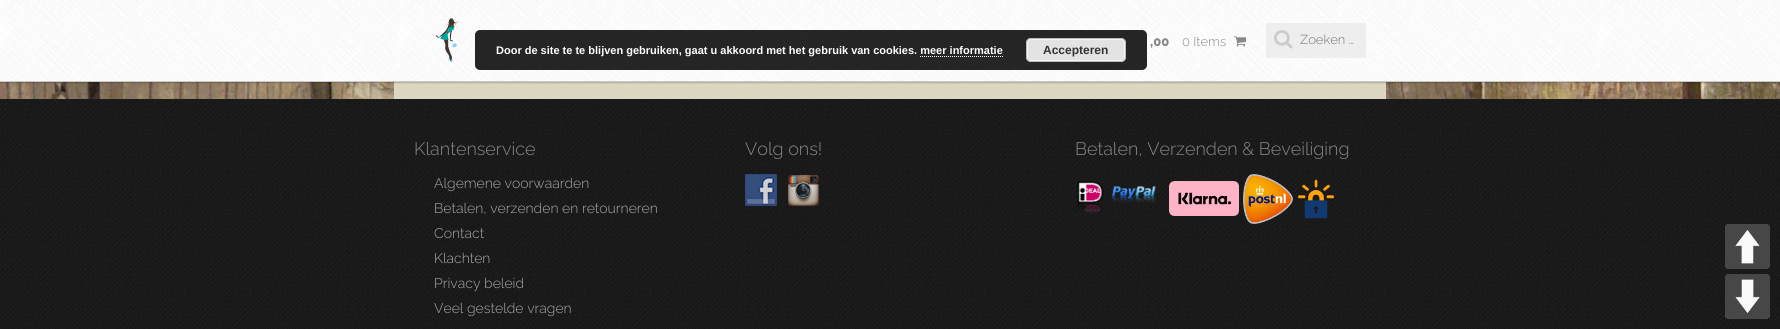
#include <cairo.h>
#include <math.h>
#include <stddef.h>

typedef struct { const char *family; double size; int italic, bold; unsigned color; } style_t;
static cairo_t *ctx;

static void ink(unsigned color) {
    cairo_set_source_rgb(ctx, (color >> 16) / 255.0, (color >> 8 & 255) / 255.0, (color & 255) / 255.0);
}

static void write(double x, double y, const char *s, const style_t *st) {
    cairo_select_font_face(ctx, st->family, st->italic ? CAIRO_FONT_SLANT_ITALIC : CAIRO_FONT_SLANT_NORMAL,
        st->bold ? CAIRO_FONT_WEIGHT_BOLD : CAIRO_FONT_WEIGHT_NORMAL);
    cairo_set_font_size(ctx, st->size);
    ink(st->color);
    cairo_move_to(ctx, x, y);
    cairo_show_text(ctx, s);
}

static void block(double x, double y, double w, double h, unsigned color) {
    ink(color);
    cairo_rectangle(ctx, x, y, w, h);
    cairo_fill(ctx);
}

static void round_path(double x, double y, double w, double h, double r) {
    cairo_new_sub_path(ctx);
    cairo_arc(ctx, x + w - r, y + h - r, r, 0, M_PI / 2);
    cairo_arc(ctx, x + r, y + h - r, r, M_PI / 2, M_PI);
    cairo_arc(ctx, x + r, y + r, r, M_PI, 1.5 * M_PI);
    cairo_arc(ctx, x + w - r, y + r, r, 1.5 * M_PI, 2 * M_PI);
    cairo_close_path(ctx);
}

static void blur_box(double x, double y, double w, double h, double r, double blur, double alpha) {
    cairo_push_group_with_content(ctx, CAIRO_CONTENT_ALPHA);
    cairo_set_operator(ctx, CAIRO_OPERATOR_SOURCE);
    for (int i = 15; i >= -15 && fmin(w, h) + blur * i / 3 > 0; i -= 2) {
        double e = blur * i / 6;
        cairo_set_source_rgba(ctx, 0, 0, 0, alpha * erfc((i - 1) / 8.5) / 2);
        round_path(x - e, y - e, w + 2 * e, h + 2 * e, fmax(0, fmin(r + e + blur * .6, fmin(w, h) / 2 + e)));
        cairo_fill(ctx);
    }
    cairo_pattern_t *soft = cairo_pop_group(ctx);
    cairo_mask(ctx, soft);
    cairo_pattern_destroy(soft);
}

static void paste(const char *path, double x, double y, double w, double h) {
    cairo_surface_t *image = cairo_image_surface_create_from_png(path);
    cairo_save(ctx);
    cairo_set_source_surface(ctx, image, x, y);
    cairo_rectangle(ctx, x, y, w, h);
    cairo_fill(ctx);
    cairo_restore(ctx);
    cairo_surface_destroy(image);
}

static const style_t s1 = {"Raleway ExtraBold", 13, 0, 0, 0x888888};
static const style_t s2 = {"Raleway Light", 13, 0, 0, 0x888888};
static const style_t s3 = {"Raleway Light", 13, 0, 0, 0x757575};
static const style_t s4 = {"Raleway Light", 18, 0, 0, 0x888888};
static const style_t s5 = {"Raleway Light", 14, 0, 0, 0xaaaaaa};
static const style_t s6 = {"Liberation Sans", 11, 0, 1, 0xffffff};
static const style_t s7 = {"Liberation Sans", 12, 0, 1, 0x333333};

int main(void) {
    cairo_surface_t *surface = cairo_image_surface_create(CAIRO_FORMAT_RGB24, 1780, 329);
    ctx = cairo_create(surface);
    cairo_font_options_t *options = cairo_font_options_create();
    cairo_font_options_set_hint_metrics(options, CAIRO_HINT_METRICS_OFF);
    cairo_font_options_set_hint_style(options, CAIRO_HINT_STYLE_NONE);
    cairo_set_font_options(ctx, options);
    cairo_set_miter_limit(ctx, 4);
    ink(0xffffff);
    cairo_paint(ctx);
    paste("pic1.png", 0, 82, 1780, 17);
    block(394, 82, 992, 17, 0xddd6c1);
    ink(0x000000);
    blur_box(0, 1, 1780, 82, 0, 0.5, 0.2);
    paste("pic2.png", 0, 0, 1780, 82);
    cairo_set_source_rgba(ctx, 0, 0, 0, 0.2);
    cairo_rectangle(ctx, 0, 81, 1780, 1);
    cairo_fill(ctx);
    paste("pic3.png", 435, 18, 23, 44);
    write(1150, 46, ",00", &s1);
    write(1182, 46, "0 Items", &s2);
    paste("pic4.png", 1234, 36, 13, 11);
    block(1266, 23, 100, 35, 0xeeeeee);
    paste("pic5.png", 1274, 30, 19, 19);
    write(1300, 44, "Zoeken …", &s3);
    paste("pic6.png", 0, 99, 1780, 230);
    write(414, 155, "Klantenservice", &s4);
    write(434, 188, "Algemene voorwaarden", &s5);
    write(434, 213, "Betalen, verzenden en retourneren", &s5);
    write(434, 238, "Contact", &s5);
    write(434, 263, "Klachten", &s5);
    write(434, 288, "Privacy beleid", &s5);
    write(434, 313, "Veel gestelde vragen", &s5);
    write(745, 155, "Volg ons!", &s4);
    paste("pic7.png", 745, 174, 32, 32);
    paste("pic8.png", 788, 175, 31, 31);
    write(1075, 155, "Betalen, Verzenden & Beveiliging", &s4);
    paste("pic9.png", 1077, 181, 79, 33);
    paste("pic10.png", 1169, 181, 70, 35);
    paste("pic11.png", 1243, 174, 50, 50);
    paste("pic12.png", 1298, 179, 36, 40);
    cairo_set_source_rgba(ctx, 0, 0, 0, 0.85);
    round_path(475, 30, 672, 40, 5);
    cairo_fill(ctx);
    write(496, 54, "Door de site te te blijven gebruiken, gaat u akkoord met het gebruik van cookies. meer informatie", &s6);
    ink(0xe3e3e3);
    round_path(1026, 38, 100, 24, 5);
    cairo_fill(ctx);
    round_path(1027.5, 39.5, 97, 21, 3.5);
    ink(0xf6f6f6);
    cairo_set_line_width(ctx, 1);
    cairo_stroke(ctx);
    round_path(1026.5, 38.5, 99, 23, 4.5);
    ink(0xbbbbbb);
    cairo_stroke(ctx);
    write(1043, 54, "Accepteren", &s7);
    cairo_new_path(ctx);
    cairo_move_to(ctx, 920, 56.5);
    cairo_line_to(ctx, 1003, 56.5);
    ink(0xffffff);
    cairo_set_dash(ctx, (double[]){1, 1}, 2, 0);
    cairo_stroke(ctx);
    ink(0xefefef);
    round_path(1725, 224, 45, 45, 4);
    cairo_fill(ctx);
    paste("pic13.png", 1725, 224, 45, 45);
    round_path(1725, 274, 45, 45, 4);
    cairo_fill(ctx);
    paste("pic14.png", 1725, 274, 45, 45);
    cairo_surface_write_to_png(surface, "screenshot.png");
    cairo_font_options_destroy(options);
    cairo_destroy(ctx);
    cairo_surface_destroy(surface);
    return 0;
}
